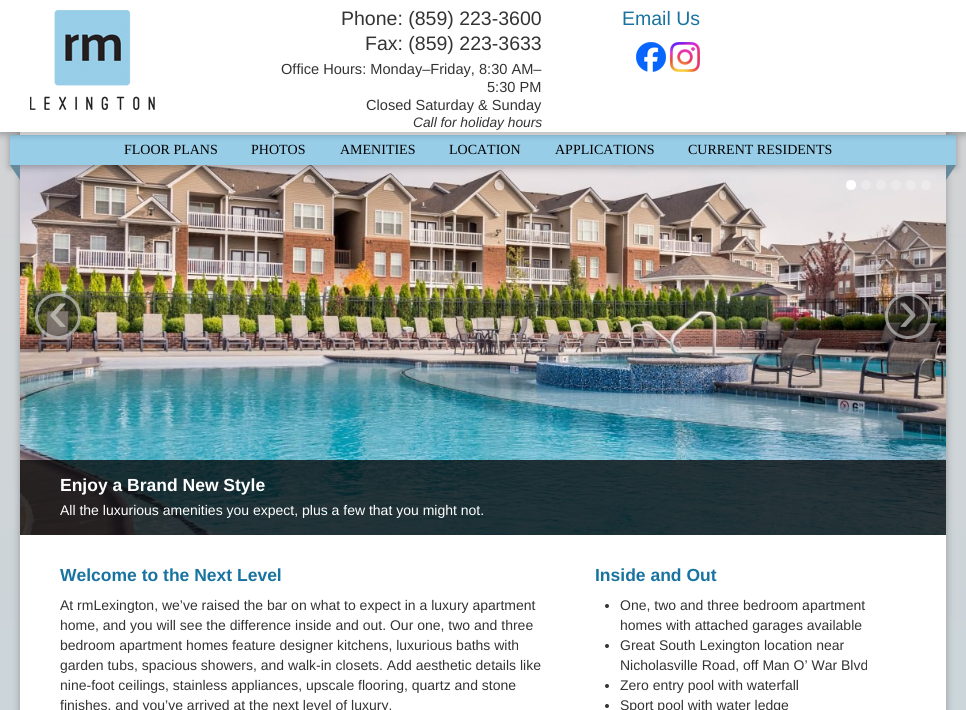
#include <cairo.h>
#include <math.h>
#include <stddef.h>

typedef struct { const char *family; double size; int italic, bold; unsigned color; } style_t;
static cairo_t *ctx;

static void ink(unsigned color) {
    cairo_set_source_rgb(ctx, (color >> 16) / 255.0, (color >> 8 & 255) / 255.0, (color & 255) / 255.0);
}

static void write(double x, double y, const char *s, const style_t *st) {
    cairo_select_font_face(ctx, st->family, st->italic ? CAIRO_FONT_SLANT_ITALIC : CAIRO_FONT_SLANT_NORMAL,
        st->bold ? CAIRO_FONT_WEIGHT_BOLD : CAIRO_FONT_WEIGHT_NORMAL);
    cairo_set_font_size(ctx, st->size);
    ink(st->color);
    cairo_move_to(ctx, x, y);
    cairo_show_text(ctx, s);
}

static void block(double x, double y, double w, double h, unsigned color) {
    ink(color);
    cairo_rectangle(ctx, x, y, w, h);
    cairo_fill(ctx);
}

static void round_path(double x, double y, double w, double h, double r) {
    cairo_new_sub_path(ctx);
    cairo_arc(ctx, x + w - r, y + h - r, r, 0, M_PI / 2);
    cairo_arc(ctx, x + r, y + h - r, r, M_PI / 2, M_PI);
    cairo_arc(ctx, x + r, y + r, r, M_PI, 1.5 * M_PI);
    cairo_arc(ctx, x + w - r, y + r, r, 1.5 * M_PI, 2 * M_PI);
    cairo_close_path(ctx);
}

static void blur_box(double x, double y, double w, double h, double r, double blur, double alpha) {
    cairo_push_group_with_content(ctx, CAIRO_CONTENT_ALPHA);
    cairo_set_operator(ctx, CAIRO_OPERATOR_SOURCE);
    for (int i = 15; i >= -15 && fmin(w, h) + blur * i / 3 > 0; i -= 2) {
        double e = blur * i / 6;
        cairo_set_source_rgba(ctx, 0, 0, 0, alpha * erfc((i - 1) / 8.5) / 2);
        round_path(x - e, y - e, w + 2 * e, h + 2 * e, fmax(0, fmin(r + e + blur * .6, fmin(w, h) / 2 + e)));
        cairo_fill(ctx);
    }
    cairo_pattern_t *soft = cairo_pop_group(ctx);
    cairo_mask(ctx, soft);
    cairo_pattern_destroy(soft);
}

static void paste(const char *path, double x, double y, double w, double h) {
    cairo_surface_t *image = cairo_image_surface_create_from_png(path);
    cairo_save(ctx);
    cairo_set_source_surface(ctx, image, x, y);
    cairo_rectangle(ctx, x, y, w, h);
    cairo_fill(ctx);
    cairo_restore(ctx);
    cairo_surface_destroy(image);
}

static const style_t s1 = {"Liberation Sans", 19.5, 0, 0, 0x333333};
static const style_t s2 = {"Liberation Sans", 14.6, 0, 0, 0x333333};
static const style_t s3 = {"Liberation Sans", 13.75, 1, 0, 0x333333};
static const style_t s4 = {"Liberation Sans", 19.5, 0, 0, 0x1973a1};
static const style_t s5 = {"Liberation Serif", 14, 0, 0, 0x000000};
static const style_t s6 = {"Liberation Sans", 60, 0, 0, 0xb5b2aa};
static const style_t s7 = {"Liberation Sans", 60, 0, 0, 0x969592};
static const style_t s8 = {"Liberation Sans", 17.5, 0, 1, 0xffffff};
static const style_t s9 = {"Liberation Sans", 14, 0, 0, 0xffffff};
static const style_t s10 = {"Liberation Sans", 17.5, 0, 1, 0x1973a1};
static const style_t s11 = {"Liberation Sans", 14, 0, 0, 0x333333};

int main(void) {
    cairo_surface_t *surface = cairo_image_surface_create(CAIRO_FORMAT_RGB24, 966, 710);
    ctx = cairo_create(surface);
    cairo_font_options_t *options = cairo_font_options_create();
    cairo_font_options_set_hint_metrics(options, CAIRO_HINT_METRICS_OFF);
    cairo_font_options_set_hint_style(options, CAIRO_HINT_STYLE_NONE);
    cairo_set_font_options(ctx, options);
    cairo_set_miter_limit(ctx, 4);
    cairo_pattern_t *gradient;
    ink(0xffffff);
    cairo_paint(ctx);
    gradient = cairo_pattern_create_linear(483, 0, 483, 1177);
    cairo_pattern_add_color_stop_rgba(gradient, 0, 0.827, 0.827, 0.827, 1);
    cairo_pattern_add_color_stop_rgba(gradient, 1, 0.78, 0.839, 0.871, 1);
    cairo_set_source(ctx, gradient);
    cairo_pattern_destroy(gradient);
    cairo_rectangle(ctx, 0, 132, 966, 578);
    cairo_fill(ctx);
    ink(0x000000);
    blur_box(20, 2, 926, 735, 15, 4, 0.3);
    block(20, 132, 926, 578, 0xffffff);
    paste("pic4.png", 20, 165, 926, 370);
    ink(0x000000);
    blur_box(10, 137, 946, 30, 0, 4, 0.3);
    block(10, 135, 946, 30, 0x98cde8);
    ink(0x000000);
    blur_box(0, 2, 966, 132, 0, 4, 0.3);
    block(0, 0, 966, 132, 0xffffff);
    paste("pic1.png", 30, 10, 125, 100);
    write(341, 25, "Phone: (859) 223-3600", &s1);
    write(365, 50, "Fax: (859) 223-3633", &s1);
    write(281, 74, "Office Hours: Monday–Friday, 8:30 AM–", &s2);
    write(487, 92, "5:30 PM", &s2);
    write(366, 110, "Closed Saturday & Sunday", &s2);
    write(413, 127, "Call for holiday hours", &s3);
    write(622, 25, "Email Us", &s4);
    paste("pic2.png", 636, 42, 30, 30);
    paste("pic3.png", 670, 42, 30, 30);
    write(124, 154, "FLOOR PLANS", &s5);
    write(251, 154, "PHOTOS", &s5);
    write(340, 154, "AMENITIES", &s5);
    write(449, 154, "LOCATION", &s5);
    write(555, 154, "APPLICATIONS", &s5);
    write(688, 154, "CURRENT RESIDENTS", &s5);
    ink(0x66899b);
    cairo_new_path(ctx);
    cairo_move_to(ctx, 20, 165);
    cairo_line_to(ctx, 20, 180);
    cairo_line_to(ctx, 10, 165);
    cairo_close_path(ctx);
    cairo_fill(ctx);
    cairo_new_path(ctx);
    cairo_move_to(ctx, 946, 180);
    cairo_line_to(ctx, 946, 165);
    cairo_line_to(ctx, 956, 165);
    cairo_close_path(ctx);
    cairo_fill(ctx);
    ink(0xffffff);
    cairo_arc(ctx, 851, 185, 5, 0, 2 * M_PI);
    cairo_fill(ctx);
    cairo_set_source_rgba(ctx, 1, 1, 1, 0.25);
    cairo_arc(ctx, 866, 185, 5, 0, 2 * M_PI);
    cairo_fill(ctx);
    ink(0xebe9ea);
    cairo_arc(ctx, 881, 185, 5, 0, 2 * M_PI);
    cairo_fill(ctx);
    ink(0xebeaea);
    cairo_arc(ctx, 896, 185, 5, 0, 2 * M_PI);
    cairo_fill(ctx);
    cairo_set_source_rgba(ctx, 1, 1, 1, 0.25);
    cairo_arc(ctx, 911, 185, 5, 0, 2 * M_PI);
    cairo_fill(ctx);
    cairo_arc(ctx, 926, 185, 5, 0, 2 * M_PI);
    cairo_fill(ctx);
    cairo_set_source_rgba(ctx, 0.133, 0.133, 0.133, 0.5);
    cairo_arc(ctx, 58, 316, 23, 0, 2 * M_PI);
    cairo_fill(ctx);
    cairo_arc(ctx, 58, 316, 21.5, 0, 2 * M_PI);
    cairo_set_source_rgba(ctx, 1, 1, 1, 0.5);
    cairo_set_line_width(ctx, 3);
    cairo_stroke(ctx);
    write(48, 331, "‹", &s6);
    cairo_set_source_rgba(ctx, 0.133, 0.133, 0.133, 0.5);
    cairo_new_path(ctx);
    cairo_arc(ctx, 908, 316, 23, 0, 2 * M_PI);
    cairo_fill(ctx);
    cairo_arc(ctx, 908, 316, 21.5, 0, 2 * M_PI);
    cairo_set_source_rgba(ctx, 1, 1, 1, 0.5);
    cairo_stroke(ctx);
    write(898, 331, "›", &s7);
    cairo_set_source_rgba(ctx, 0, 0, 0, 0.75);
    cairo_rectangle(ctx, 20, 460, 926, 75);
    cairo_fill(ctx);
    write(60, 491, "Enjoy a Brand New Style", &s8);
    write(60, 515, "All the luxurious amenities you expect, plus a few that you might not.", &s9);
    write(60, 581, "Welcome to the Next Level", &s10);
    write(60, 610, "At rmLexington, we’ve raised the bar on what to expect in a luxury apartment", &s11);
    write(60, 630, "home, and you will see the difference inside and out. Our one, two and three", &s11);
    write(60, 650, "bedroom apartment homes feature designer kitchens, luxurious baths with", &s11);
    write(60, 670, "garden tubs, spacious showers, and walk-in closets. Add aesthetic details like", &s11);
    write(60, 690, "nine-foot ceilings, stainless appliances, upscale flooring, quartz and stone", &s11);
    write(60, 710, "finishes, and you’ve arrived at the next level of luxury.", &s11);
    write(595, 581, "Inside and Out", &s10);
    ink(0x333333);
    cairo_new_path(ctx);
    cairo_arc(ctx, 607, 606, 2, 0, 2 * M_PI);
    cairo_fill(ctx);
    write(620, 610, "One, two and three bedroom apartment", &s11);
    write(620, 630, "homes with attached garages available", &s11);
    cairo_new_path(ctx);
    cairo_arc(ctx, 607, 646, 2, 0, 2 * M_PI);
    cairo_fill(ctx);
    write(620, 650, "Great South Lexington location near", &s11);
    write(620, 670, "Nicholasville Road, off Man O’ War Blvd", &s11);
    cairo_new_path(ctx);
    cairo_arc(ctx, 607, 686, 2, 0, 2 * M_PI);
    cairo_fill(ctx);
    write(620, 690, "Zero entry pool with waterfall", &s11);
    cairo_new_path(ctx);
    cairo_arc(ctx, 607, 706, 2, 0, 2 * M_PI);
    cairo_fill(ctx);
    write(620, 710, "Sport pool with water ledge", &s11);
    cairo_surface_write_to_png(surface, "screenshot.png");
    cairo_font_options_destroy(options);
    cairo_destroy(ctx);
    cairo_surface_destroy(surface);
    return 0;
}
